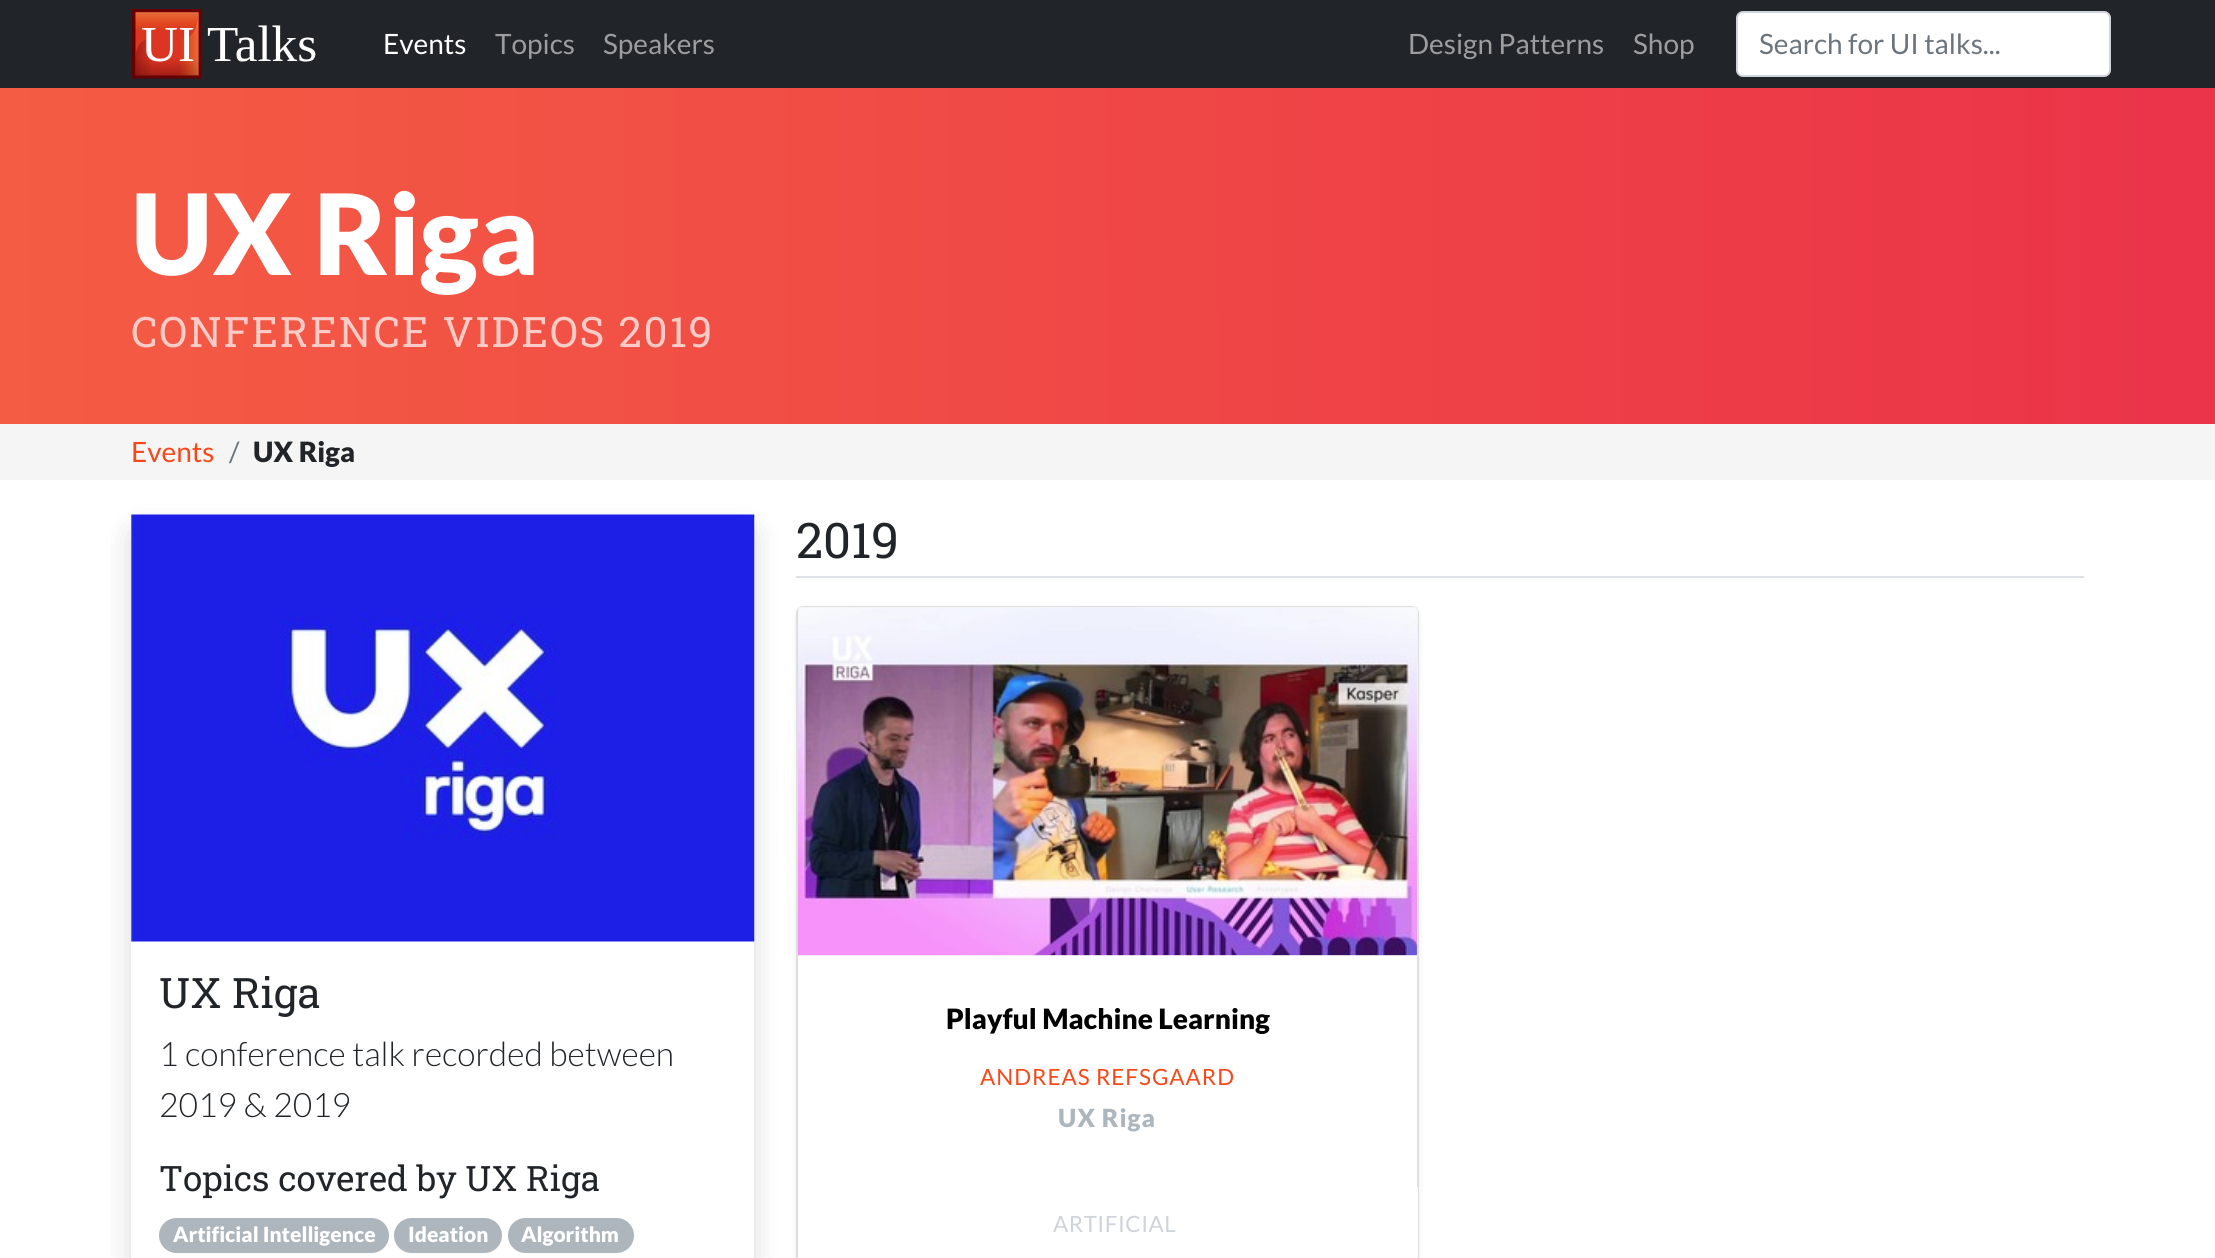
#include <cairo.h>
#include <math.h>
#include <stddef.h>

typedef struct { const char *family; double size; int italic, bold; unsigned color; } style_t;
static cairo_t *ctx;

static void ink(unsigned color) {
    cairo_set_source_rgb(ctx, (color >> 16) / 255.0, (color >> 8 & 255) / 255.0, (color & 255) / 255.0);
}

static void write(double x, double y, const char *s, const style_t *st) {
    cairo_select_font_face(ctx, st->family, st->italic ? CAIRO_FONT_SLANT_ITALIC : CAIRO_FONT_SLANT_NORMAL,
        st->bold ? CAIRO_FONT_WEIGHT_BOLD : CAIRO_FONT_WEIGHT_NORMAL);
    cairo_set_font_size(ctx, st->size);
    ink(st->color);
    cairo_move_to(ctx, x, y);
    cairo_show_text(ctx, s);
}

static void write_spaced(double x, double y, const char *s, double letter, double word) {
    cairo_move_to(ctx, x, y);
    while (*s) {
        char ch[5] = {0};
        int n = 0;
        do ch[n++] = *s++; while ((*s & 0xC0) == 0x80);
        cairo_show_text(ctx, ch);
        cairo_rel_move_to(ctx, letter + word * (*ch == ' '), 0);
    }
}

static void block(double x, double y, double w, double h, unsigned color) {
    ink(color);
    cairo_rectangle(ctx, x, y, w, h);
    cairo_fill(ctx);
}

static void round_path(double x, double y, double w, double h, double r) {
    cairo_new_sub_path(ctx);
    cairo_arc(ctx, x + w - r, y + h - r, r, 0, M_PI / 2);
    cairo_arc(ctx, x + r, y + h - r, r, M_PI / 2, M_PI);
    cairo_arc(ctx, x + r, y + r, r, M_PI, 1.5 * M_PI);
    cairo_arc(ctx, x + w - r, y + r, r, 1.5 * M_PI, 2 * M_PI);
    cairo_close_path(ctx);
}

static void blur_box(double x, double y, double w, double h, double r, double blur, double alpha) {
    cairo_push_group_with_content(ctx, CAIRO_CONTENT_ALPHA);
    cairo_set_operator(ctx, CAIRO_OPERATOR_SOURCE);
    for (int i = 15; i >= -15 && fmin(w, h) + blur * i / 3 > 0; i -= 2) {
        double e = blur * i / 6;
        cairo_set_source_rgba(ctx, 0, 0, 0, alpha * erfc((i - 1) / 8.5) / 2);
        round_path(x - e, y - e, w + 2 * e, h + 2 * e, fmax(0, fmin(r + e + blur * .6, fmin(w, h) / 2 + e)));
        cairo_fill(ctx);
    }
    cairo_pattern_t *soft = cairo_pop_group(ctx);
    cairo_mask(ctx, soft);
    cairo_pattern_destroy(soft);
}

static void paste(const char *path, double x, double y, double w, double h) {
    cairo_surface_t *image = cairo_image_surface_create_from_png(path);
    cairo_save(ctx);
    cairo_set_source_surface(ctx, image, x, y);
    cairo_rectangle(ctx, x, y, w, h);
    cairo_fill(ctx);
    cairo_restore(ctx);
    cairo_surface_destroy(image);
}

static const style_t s1 = {"Lato", 28, 0, 0, 0xffffff};
static const style_t s2 = {"Lato", 28, 0, 0, 0x9b9d9f};
static const style_t s3 = {"Lato", 28, 0, 0, 0x6c757d};
static const style_t s4 = {"Lato Black", 112, 0, 0, 0xffffff};
static const style_t s5 = {"Lato", 28, 0, 0, 0xf6491a};
static const style_t s6 = {"Lato Black", 28, 0, 0, 0x212529};
static const style_t s7 = {"Roboto Slab", 42, 0, 0, 0x212529};
static const style_t s8 = {"Lato Light", 33.6, 0, 0, 0x212529};
static const style_t s9 = {"Roboto Slab", 35, 0, 0, 0x212529};
static const style_t s10 = {"Lato Black", 21, 0, 0, 0xffffff};
static const style_t s11 = {"Roboto Slab", 49, 0, 0, 0x212529};
static const style_t s12 = {"Lato Black", 28, 0, 0, 0x000000};

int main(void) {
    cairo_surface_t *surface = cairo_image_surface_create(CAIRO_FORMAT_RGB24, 2215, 1258);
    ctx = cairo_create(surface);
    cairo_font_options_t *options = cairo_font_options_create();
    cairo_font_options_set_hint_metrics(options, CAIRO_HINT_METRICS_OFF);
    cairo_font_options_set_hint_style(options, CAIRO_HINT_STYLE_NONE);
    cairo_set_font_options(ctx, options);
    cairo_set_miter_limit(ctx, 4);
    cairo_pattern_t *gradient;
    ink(0xffffff);
    cairo_paint(ctx);
    block(0, 0, 2215, 88, 0x212529);
    paste("pic1.png", 131, 9, 185, 70);
    write(383, 54, "Events", &s1);
    write(495, 54, "Topics", &s2);
    write(603, 54, "Speakers", &s2);
    write(1408, 54, "Design Patterns", &s2);
    write(1633, 54, "Shop", &s2);
    ink(0xffffff);
    round_path(1737, 12, 373, 64, 6);
    cairo_fill_preserve(ctx);
    ink(0xced4da);
    cairo_stroke(ctx);
    write(1759, 54, "Search for UI talks...", &s3);
    gradient = cairo_pattern_create_linear(0, 256, 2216, 255);
    cairo_pattern_add_color_stop_rgba(gradient, 0, 0.957, 0.361, 0.263, 1);
    cairo_pattern_add_color_stop_rgba(gradient, 1, 0.922, 0.2, 0.286, 1);
    cairo_set_source(ctx, gradient);
    cairo_pattern_destroy(gradient);
    cairo_rectangle(ctx, 0, 88, 2215, 336);
    cairo_fill(ctx);
    write(131, 275, "UX Riga", &s4);
    cairo_select_font_face(ctx, "Roboto Slab", CAIRO_FONT_SLANT_NORMAL, CAIRO_FONT_WEIGHT_NORMAL);
    cairo_set_font_size(ctx, 42);
    ink(0xfbccc7);
    write_spaced(131, 347, "CONFERENCE VIDEOS 2019", 1.9, 0);
    block(0, 424, 2215, 56, 0xf5f5f5);
    write(131, 462, "Events", &s5);
    write(229, 462, "/", &s3);
    write(253, 462, "UX Riga", &s6);
    ink(0x000000);
    blur_box(131, 529, 623, 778, 7, 14, 0.15);
    ink(0xffffff);
    round_path(131, 515, 623, 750, 7);
    cairo_fill(ctx);
    paste("pic2.png", 131, 514, 624, 428);
    write(159, 1008, "UX Riga", &s7);
    write(159, 1066, "1 conference talk recorded between", &s8);
    write(159, 1117, "2019 & 2019", &s8);
    write(159, 1191, "Topics covered by UX Riga", &s9);
    ink(0xadb5bd);
    round_path(159, 1218, 230, 35, 17.5);
    cairo_fill(ctx);
    write(173, 1242, "Artificial Intelligence", &s10);
    ink(0xadb5bd);
    round_path(394, 1218, 108, 35, 17.5);
    cairo_fill(ctx);
    write(408, 1242, "Ideation", &s10);
    ink(0xadb5bd);
    round_path(508, 1218, 126, 35, 17.5);
    cairo_fill(ctx);
    write(521, 1242, "Algorithm", &s10);
    block(796, 576, 1288, 2, 0xdee2e6);
    write(796, 558, "2019", &s11);
    ink(0x000000);
    blur_box(796, 609, 623, 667, 7, 3.5, 0.07);
    ink(0xffffff);
    round_path(797, 607, 621, 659, 6);
    cairo_fill_preserve(ctx);
    ink(0xdfdfdf);
    cairo_stroke(ctx);
    block(798, 607, 620, 349, 0xf2f2f2);
    paste("pic3.png", 798, 607, 620, 349);
    write(946, 1029, "Playful Machine Learning", &s12);
    cairo_select_font_face(ctx, "Lato", CAIRO_FONT_SLANT_NORMAL, CAIRO_FONT_WEIGHT_NORMAL);
    cairo_set_font_size(ctx, 22.4);
    ink(0xf6491a);
    write_spaced(980, 1085, "ANDREAS REFSGAARD", 1, 0);
    cairo_select_font_face(ctx, "Lato Black", CAIRO_FONT_SLANT_NORMAL, CAIRO_FONT_WEIGHT_NORMAL);
    cairo_set_font_size(ctx, 25);
    ink(0xadb5bd);
    write_spaced(1058, 1127, "UX Riga", 1, 0);
    block(1417, 1187, 1, 71, 0xffffff);
    cairo_select_font_face(ctx, "Lato", CAIRO_FONT_SLANT_NORMAL, CAIRO_FONT_WEIGHT_NORMAL);
    cairo_set_font_size(ctx, 22.4);
    ink(0xced4da);
    write_spaced(1053, 1232, "ARTIFICIAL", 0.5, 0);
    cairo_surface_write_to_png(surface, "screenshot.png");
    cairo_font_options_destroy(options);
    cairo_destroy(ctx);
    cairo_surface_destroy(surface);
    return 0;
}
